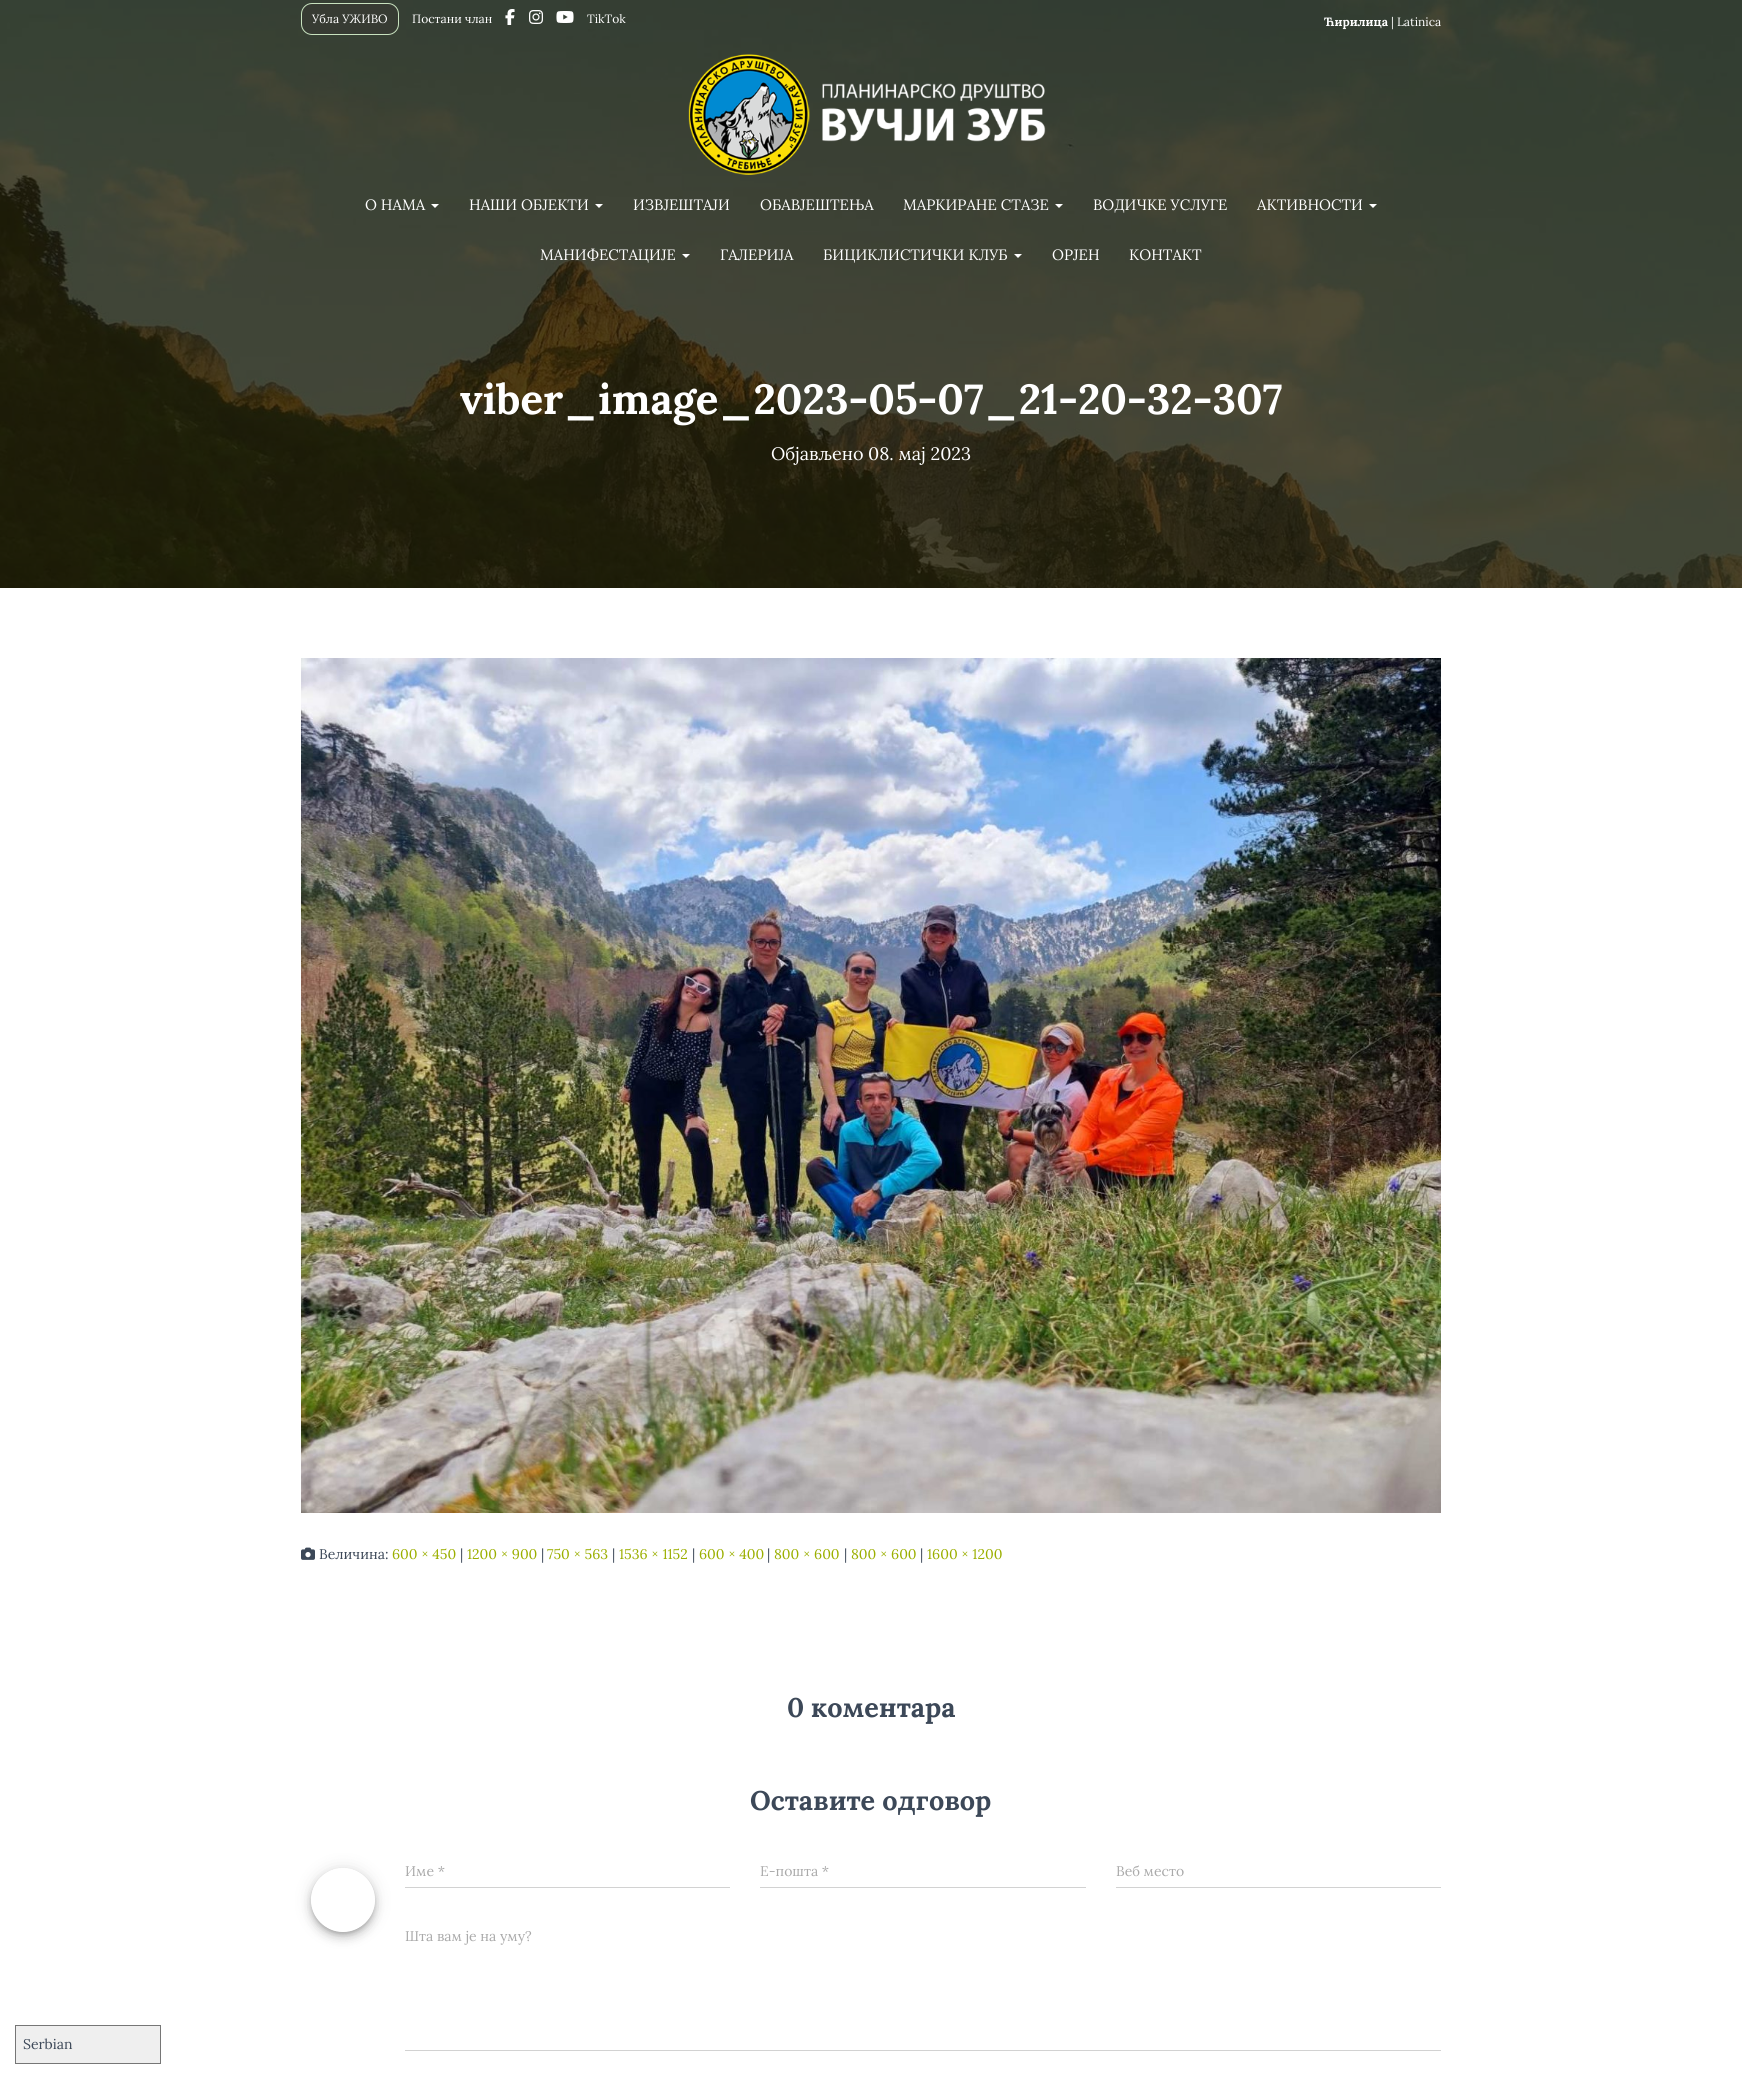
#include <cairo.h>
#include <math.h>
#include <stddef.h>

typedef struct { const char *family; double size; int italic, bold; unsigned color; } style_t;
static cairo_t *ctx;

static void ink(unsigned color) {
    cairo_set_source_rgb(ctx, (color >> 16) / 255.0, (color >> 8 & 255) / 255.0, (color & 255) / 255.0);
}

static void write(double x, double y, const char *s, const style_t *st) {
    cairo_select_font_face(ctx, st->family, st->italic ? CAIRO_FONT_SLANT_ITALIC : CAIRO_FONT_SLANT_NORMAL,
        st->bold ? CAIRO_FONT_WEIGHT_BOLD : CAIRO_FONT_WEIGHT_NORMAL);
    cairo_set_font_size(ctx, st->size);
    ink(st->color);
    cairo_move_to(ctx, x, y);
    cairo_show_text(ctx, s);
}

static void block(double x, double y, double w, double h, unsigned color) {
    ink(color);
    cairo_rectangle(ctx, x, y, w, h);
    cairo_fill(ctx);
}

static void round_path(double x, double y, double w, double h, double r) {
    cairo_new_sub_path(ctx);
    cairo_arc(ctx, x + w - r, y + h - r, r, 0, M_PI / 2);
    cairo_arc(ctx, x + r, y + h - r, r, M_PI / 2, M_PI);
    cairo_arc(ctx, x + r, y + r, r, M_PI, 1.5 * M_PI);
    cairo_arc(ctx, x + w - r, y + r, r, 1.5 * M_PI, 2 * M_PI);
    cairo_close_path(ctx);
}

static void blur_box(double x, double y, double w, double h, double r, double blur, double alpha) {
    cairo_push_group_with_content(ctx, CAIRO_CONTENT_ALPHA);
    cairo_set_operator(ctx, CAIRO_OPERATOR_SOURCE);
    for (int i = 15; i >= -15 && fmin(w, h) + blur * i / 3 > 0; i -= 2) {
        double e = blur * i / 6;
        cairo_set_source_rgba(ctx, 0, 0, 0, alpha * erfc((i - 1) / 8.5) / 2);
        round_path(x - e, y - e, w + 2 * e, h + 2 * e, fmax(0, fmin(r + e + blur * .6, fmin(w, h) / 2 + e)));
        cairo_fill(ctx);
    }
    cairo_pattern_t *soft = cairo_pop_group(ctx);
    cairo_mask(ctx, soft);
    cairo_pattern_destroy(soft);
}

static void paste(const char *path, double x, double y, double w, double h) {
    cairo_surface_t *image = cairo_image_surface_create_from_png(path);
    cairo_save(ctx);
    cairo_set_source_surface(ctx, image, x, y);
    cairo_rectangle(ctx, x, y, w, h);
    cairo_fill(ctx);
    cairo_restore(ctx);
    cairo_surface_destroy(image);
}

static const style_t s1 = {"Lora", 12, 0, 0, 0xffffff};
static const style_t s2 = {"Lora", 12, 0, 1, 0xffffff};
static const style_t s3 = {"Lora", 15, 0, 0, 0xffffff};
static const style_t s4 = {"Lora", 42, 0, 1, 0xffffff};
static const style_t s5 = {"Lora", 18, 0, 0, 0xffffff};
static const style_t s6 = {"Lora", 14, 0, 0, 0x3c4858};
static const style_t s7 = {"Lora", 14, 0, 0, 0x9baf00};
static const style_t s8 = {"Lora", 27, 0, 1, 0x3c4858};
static const style_t s9 = {"Lora", 14, 0, 0, 0xaaaaaa};

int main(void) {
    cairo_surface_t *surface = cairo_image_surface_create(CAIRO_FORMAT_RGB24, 1742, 2079);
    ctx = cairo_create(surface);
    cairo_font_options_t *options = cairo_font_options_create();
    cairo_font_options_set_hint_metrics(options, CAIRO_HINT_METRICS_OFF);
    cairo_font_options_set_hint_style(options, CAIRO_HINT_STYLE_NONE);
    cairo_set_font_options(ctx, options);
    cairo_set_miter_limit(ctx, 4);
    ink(0xffffff);
    cairo_paint(ctx);
    paste("pic5.png", 0, 0, 1742, 588);
    ink(0x373b33);
    round_path(301.5, 3.5, 97, 31, 10.5);
    cairo_fill_preserve(ctx);
    ink(0xc8e2bf);
    cairo_set_line_width(ctx, 1);
    cairo_stroke(ctx);
    write(312, 23, "Убла УЖИВО", &s1);
    write(412, 23, "Постани члан", &s1);
    paste("pic1.png", 505, 9, 10, 16);
    paste("pic2.png", 529, 10, 14, 14);
    paste("pic3.png", 556, 11, 18, 12);
    write(587, 23, "TikTok", &s1);
    write(1324, 26, "Ћирилица", &s2);
    write(1391, 26, "| Latinica", &s1);
    paste("pic4.png", 688, 54, 358, 121);
    write(365, 210, "О НАМА", &s3);
    cairo_new_path(ctx);
    cairo_move_to(ctx, 431, 204);
    cairo_line_to(ctx, 439, 204);
    cairo_line_to(ctx, 435, 208);
    cairo_close_path(ctx);
    cairo_fill(ctx);
    write(469, 210, "НАШИ ОБЈЕКТИ", &s3);
    cairo_new_path(ctx);
    cairo_move_to(ctx, 595, 204);
    cairo_line_to(ctx, 603, 204);
    cairo_line_to(ctx, 599, 208);
    cairo_close_path(ctx);
    cairo_fill(ctx);
    write(633, 210, "ИЗВЈЕШТАЈИ", &s3);
    write(760, 210, "ОБАВЈЕШТЕЊА", &s3);
    write(903, 210, "МАРКИРАНЕ СТАЗЕ", &s3);
    cairo_new_path(ctx);
    cairo_move_to(ctx, 1055, 204);
    cairo_line_to(ctx, 1063, 204);
    cairo_line_to(ctx, 1059, 208);
    cairo_close_path(ctx);
    cairo_fill(ctx);
    write(1093, 210, "ВОДИЧКЕ УСЛУГЕ", &s3);
    write(1257, 210, "АКТИВНОСТИ", &s3);
    cairo_new_path(ctx);
    cairo_move_to(ctx, 1369, 204);
    cairo_line_to(ctx, 1377, 204);
    cairo_line_to(ctx, 1373, 208);
    cairo_close_path(ctx);
    cairo_fill(ctx);
    write(540, 260, "МАНИФЕСТАЦИЈЕ", &s3);
    cairo_new_path(ctx);
    cairo_move_to(ctx, 682, 254);
    cairo_line_to(ctx, 690, 254);
    cairo_line_to(ctx, 686, 258);
    cairo_close_path(ctx);
    cairo_fill(ctx);
    write(720, 260, "ГАЛЕРИЈА", &s3);
    write(823, 260, "БИЦИКЛИСТИЧКИ КЛУБ", &s3);
    cairo_new_path(ctx);
    cairo_move_to(ctx, 1014, 254);
    cairo_line_to(ctx, 1022, 254);
    cairo_line_to(ctx, 1018, 258);
    cairo_close_path(ctx);
    cairo_fill(ctx);
    write(1052, 260, "ОРЈЕН", &s3);
    write(1129, 260, "КОНТАКТ", &s3);
    write(460, 414, "viber_image_2023-05-07_21-20-32-307", &s4);
    write(771, 460, "Објављено", &s5);
    write(868, 460, "08. мај 2023", &s5);
    paste("pic6.png", 301, 658, 1140, 855);
    paste("pic7.png", 301, 1547, 14, 13);
    write(319, 1559, "Величина:", &s6);
    write(392, 1559, "600 × 450", &s7);
    write(460, 1559, "|", &s6);
    write(467, 1559, "1200 × 900", &s7);
    write(541, 1559, "|", &s6);
    write(547, 1559, "750 × 563", &s7);
    write(612, 1559, "|", &s6);
    write(619, 1559, "1536 × 1152", &s7);
    write(692, 1559, "|", &s6);
    write(699, 1559, "600 × 400", &s7);
    write(767, 1559, "|", &s6);
    write(774, 1559, "800 × 600", &s7);
    write(844, 1559, "|", &s6);
    write(851, 1559, "800 × 600", &s7);
    write(920, 1559, "|", &s6);
    write(927, 1559, "1600 × 1200", &s7);
    write(787, 1717, "0 коментара", &s8);
    write(750, 1810, "Оставите одговор", &s8);
    cairo_save(ctx);
    cairo_set_fill_rule(ctx, CAIRO_FILL_RULE_EVEN_ODD);
    cairo_new_path(ctx);
    cairo_move_to(ctx, 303, 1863);
    cairo_line_to(ctx, 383, 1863);
    cairo_line_to(ctx, 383, 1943);
    cairo_line_to(ctx, 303, 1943);
    cairo_close_path(ctx);
    cairo_move_to(ctx, 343, 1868);
    cairo_curve_to(ctx, 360.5, 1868, 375, 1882.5, 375, 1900);
    cairo_curve_to(ctx, 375, 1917.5, 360.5, 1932, 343, 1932);
    cairo_curve_to(ctx, 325.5, 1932, 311, 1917.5, 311, 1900);
    cairo_curve_to(ctx, 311, 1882.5, 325.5, 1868, 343, 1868);
    cairo_close_path(ctx);
    cairo_clip(ctx);
    ink(0x000000);
    blur_box(312, 1872, 62, 62, 31, 2.5, 0.2);
    cairo_restore(ctx);
    cairo_save(ctx);
    cairo_set_fill_rule(ctx, CAIRO_FILL_RULE_EVEN_ODD);
    cairo_new_path(ctx);
    cairo_move_to(ctx, 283, 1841);
    cairo_line_to(ctx, 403, 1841);
    cairo_line_to(ctx, 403, 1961);
    cairo_line_to(ctx, 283, 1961);
    cairo_close_path(ctx);
    cairo_move_to(ctx, 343, 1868);
    cairo_curve_to(ctx, 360.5, 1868, 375, 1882.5, 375, 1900);
    cairo_curve_to(ctx, 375, 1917.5, 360.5, 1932, 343, 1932);
    cairo_curve_to(ctx, 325.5, 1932, 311, 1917.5, 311, 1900);
    cairo_curve_to(ctx, 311, 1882.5, 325.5, 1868, 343, 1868);
    cairo_close_path(ctx);
    cairo_clip(ctx);
    ink(0x000000);
    blur_box(311, 1869, 64, 64, 32, 9, 0.12);
    cairo_restore(ctx);
    cairo_save(ctx);
    cairo_set_fill_rule(ctx, CAIRO_FILL_RULE_EVEN_ODD);
    cairo_new_path(ctx);
    cairo_move_to(ctx, 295, 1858);
    cairo_line_to(ctx, 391, 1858);
    cairo_line_to(ctx, 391, 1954);
    cairo_line_to(ctx, 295, 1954);
    cairo_close_path(ctx);
    cairo_move_to(ctx, 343, 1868);
    cairo_curve_to(ctx, 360.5, 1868, 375, 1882.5, 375, 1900);
    cairo_curve_to(ctx, 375, 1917.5, 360.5, 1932, 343, 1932);
    cairo_curve_to(ctx, 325.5, 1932, 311, 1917.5, 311, 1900);
    cairo_curve_to(ctx, 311, 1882.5, 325.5, 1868, 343, 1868);
    cairo_close_path(ctx);
    cairo_clip(ctx);
    ink(0x000000);
    blur_box(311, 1874, 64, 64, 32, 5, 0.14);
    cairo_restore(ctx);
    write(405, 1876, "Име *", &s9);
    block(405, 1887, 325, 1, 0xd2d2d2);
    write(760, 1876, "Е-пошта *", &s9);
    block(760, 1887, 326, 1, 0xd2d2d2);
    write(1116, 1876, "Веб место", &s9);
    block(1116, 1887, 325, 1, 0xd2d2d2);
    write(405, 1941, "Шта вам је на уму?", &s9);
    block(405, 2050, 1036, 1, 0xd2d2d2);
    ink(0xefefef);
    cairo_rectangle(ctx, 15.5, 2025.5, 145, 38);
    cairo_fill_preserve(ctx);
    ink(0x767676);
    cairo_stroke(ctx);
    write(23, 2049, "Serbian", &s6);
    cairo_surface_write_to_png(surface, "screenshot.png");
    cairo_font_options_destroy(options);
    cairo_destroy(ctx);
    cairo_surface_destroy(surface);
    return 0;
}
